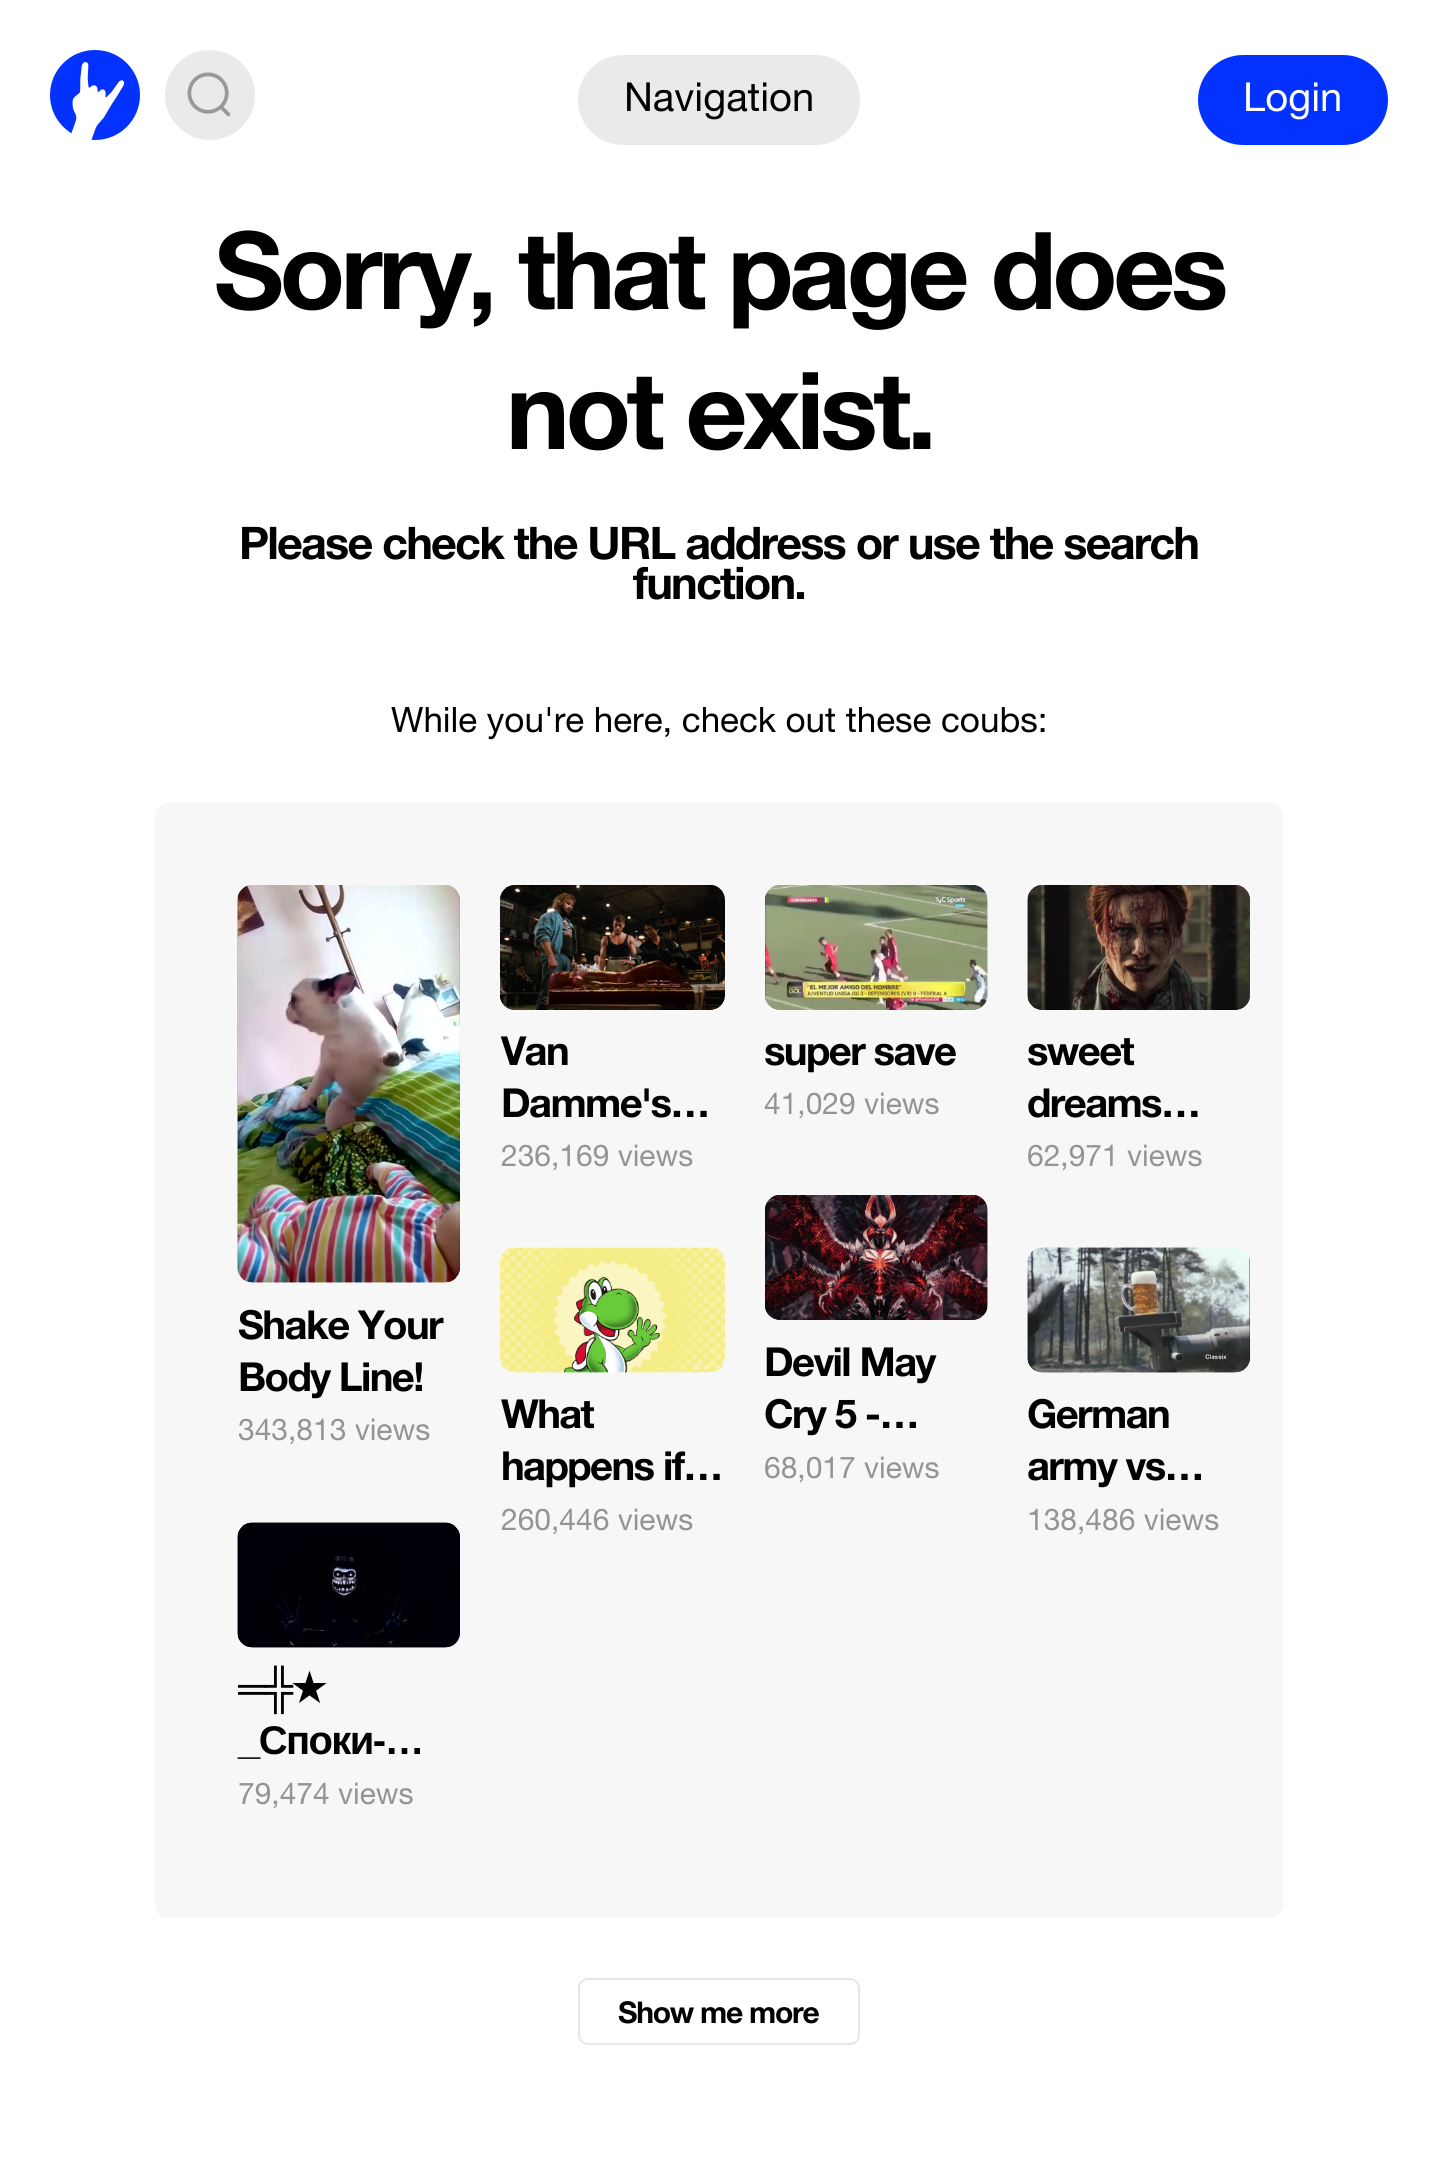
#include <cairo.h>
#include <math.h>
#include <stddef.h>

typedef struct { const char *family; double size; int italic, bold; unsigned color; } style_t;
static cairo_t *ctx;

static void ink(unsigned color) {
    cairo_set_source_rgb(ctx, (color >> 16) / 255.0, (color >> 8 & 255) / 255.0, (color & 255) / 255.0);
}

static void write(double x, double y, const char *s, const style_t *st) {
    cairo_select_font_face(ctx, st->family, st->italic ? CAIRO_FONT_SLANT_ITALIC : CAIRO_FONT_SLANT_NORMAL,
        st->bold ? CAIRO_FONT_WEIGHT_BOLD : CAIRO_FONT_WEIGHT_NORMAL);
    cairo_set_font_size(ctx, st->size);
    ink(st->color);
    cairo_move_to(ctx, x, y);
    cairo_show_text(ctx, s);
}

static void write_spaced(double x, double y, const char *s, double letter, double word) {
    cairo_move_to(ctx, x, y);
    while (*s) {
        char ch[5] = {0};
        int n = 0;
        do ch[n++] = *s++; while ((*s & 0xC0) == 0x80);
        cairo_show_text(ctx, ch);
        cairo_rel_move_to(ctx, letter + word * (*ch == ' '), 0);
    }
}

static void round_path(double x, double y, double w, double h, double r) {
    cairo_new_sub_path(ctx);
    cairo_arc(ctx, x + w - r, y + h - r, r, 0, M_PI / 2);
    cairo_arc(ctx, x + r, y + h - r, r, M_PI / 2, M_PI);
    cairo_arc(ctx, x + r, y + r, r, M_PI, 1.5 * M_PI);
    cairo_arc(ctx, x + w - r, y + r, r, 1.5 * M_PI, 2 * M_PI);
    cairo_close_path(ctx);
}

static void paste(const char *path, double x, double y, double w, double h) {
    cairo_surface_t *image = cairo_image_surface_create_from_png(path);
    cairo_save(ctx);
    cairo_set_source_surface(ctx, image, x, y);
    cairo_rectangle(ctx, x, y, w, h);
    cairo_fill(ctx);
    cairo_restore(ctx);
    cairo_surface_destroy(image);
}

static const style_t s1 = {"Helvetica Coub", 40, 0, 0, 0x000000};
static const style_t s2 = {"Helvetica Coub", 40, 0, 0, 0xffffff};
static const style_t s3 = {"Helvetica Coub", 35, 0, 0, 0x000000};
static const style_t s4 = {"Helvetica Coub", 30, 0, 0, 0x949494};

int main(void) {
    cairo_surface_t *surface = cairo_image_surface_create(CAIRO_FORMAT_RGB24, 1437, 2184);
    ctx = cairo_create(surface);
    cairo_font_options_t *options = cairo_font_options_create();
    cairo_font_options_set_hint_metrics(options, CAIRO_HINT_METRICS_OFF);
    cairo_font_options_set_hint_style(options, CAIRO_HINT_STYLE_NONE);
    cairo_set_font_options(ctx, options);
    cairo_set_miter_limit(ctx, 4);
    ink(0xffffff);
    cairo_paint(ctx);
    paste("pic1.png", 50, 50, 90, 90);
    ink(0xeaeaea);
    cairo_arc(ctx, 210, 95, 45, 0, 2 * M_PI);
    cairo_fill(ctx);
    paste("pic2.png", 187, 72, 44, 45);
    round_path(578, 55, 282, 90, 45);
    cairo_fill(ctx);
    write(624, 111, "Navigation", &s1);
    ink(0x0332ff);
    round_path(1198, 55, 190, 90, 45);
    cairo_fill(ctx);
    write(1243, 111, "Login", &s2);
    cairo_select_font_face(ctx, "Helvetica Coub", CAIRO_FONT_SLANT_NORMAL, CAIRO_FONT_WEIGHT_BOLD);
    cairo_set_font_size(ctx, 107.5);
    ink(0x000000);
    write_spaced(214, 309, "Sorry, that page does", -4.3, 0);
    write_spaced(506, 449, "not exist.", -4.3, 0);
    cairo_set_font_size(ctx, 45);
    write_spaced(239, 559, "Please check the URL address or use the search", -1.8, 0);
    write_spaced(633, 599, "function.", -1.8, 0);
    write(391, 732, "While you're here, check out these coubs:", &s3);
    ink(0xf7f7f7);
    round_path(155, 803, 1128, 1115, 13);
    cairo_fill(ctx);
    paste("pic3.png", 500, 885, 225, 125);
    paste("pic4.png", 500, 885, 223, 125);
    cairo_select_font_face(ctx, "Helvetica Coub", CAIRO_FONT_SLANT_NORMAL, CAIRO_FONT_WEIGHT_BOLD);
    cairo_set_font_size(ctx, 40);
    ink(0x000000);
    write_spaced(501, 1065, "Van", -1.6, 0);
    write_spaced(501, 1117, "Damme's…", -1.6, 0);
    write(501, 1166, "236,169 views", &s4);
    paste("pic5.png", 765, 885, 223, 125);
    paste("pic6.png", 765, 885, 223, 125);
    cairo_select_font_face(ctx, "Helvetica Coub", CAIRO_FONT_SLANT_NORMAL, CAIRO_FONT_WEIGHT_BOLD);
    cairo_set_font_size(ctx, 40);
    ink(0x000000);
    write_spaced(764, 1065, "super save", -1.6, 0);
    write(764, 1114, "41,029 views", &s4);
    paste("pic7.png", 1027, 885, 223, 125);
    paste("pic8.png", 1027, 885, 223, 125);
    cairo_select_font_face(ctx, "Helvetica Coub", CAIRO_FONT_SLANT_NORMAL, CAIRO_FONT_WEIGHT_BOLD);
    cairo_set_font_size(ctx, 40);
    ink(0x000000);
    write_spaced(1027, 1065, "sweet", -1.6, 0);
    write_spaced(1027, 1117, "dreams…", -1.6, 0);
    write(1027, 1166, "62,971 views", &s4);
    paste("pic9.png", 237, 885, 223, 398);
    paste("pic10.png", 237, 885, 223, 398);
    cairo_select_font_face(ctx, "Helvetica Coub", CAIRO_FONT_SLANT_NORMAL, CAIRO_FONT_WEIGHT_BOLD);
    cairo_set_font_size(ctx, 40);
    ink(0x000000);
    write_spaced(238, 1339, "Shake Your", -1.6, 0);
    write_spaced(238, 1391, "Body Line!", -1.6, 0);
    write(238, 1440, "343,813 views", &s4);
    paste("pic11.png", 500, 1247, 225, 126);
    paste("pic12.png", 500, 1247, 223, 126);
    cairo_select_font_face(ctx, "Helvetica Coub", CAIRO_FONT_SLANT_NORMAL, CAIRO_FONT_WEIGHT_BOLD);
    cairo_set_font_size(ctx, 40);
    ink(0x000000);
    write_spaced(501, 1428, "What", -1.6, 0);
    write_spaced(501, 1480, "happens if…", -1.6, 0);
    write(501, 1530, "260,446 views", &s4);
    paste("pic13.png", 765, 1195, 223, 125);
    paste("pic14.png", 765, 1195, 223, 125);
    cairo_select_font_face(ctx, "Helvetica Coub", CAIRO_FONT_SLANT_NORMAL, CAIRO_FONT_WEIGHT_BOLD);
    cairo_set_font_size(ctx, 40);
    ink(0x000000);
    write_spaced(764, 1376, "Devil May", -1.6, 0);
    write_spaced(764, 1428, "Cry 5 -…", -1.6, 0);
    write(764, 1478, "68,017 views", &s4);
    paste("pic15.png", 1027, 1247, 223, 126);
    paste("pic16.png", 1027, 1247, 223, 126);
    cairo_select_font_face(ctx, "Helvetica Coub", CAIRO_FONT_SLANT_NORMAL, CAIRO_FONT_WEIGHT_BOLD);
    cairo_set_font_size(ctx, 40);
    ink(0x000000);
    write_spaced(1027, 1428, "German", -1.6, 0);
    write_spaced(1027, 1480, "army vs…", -1.6, 0);
    write(1027, 1530, "138,486 views", &s4);
    paste("pic17.png", 237, 1522, 223, 126);
    paste("pic18.png", 237, 1522, 223, 126);
    cairo_save(ctx);
    cairo_rectangle(ctx, 238, 1665, 222, 103);
    cairo_clip(ctx);
    cairo_select_font_face(ctx, "Liberation Sans", CAIRO_FONT_SLANT_NORMAL, CAIRO_FONT_WEIGHT_BOLD);
    cairo_set_font_size(ctx, 40);
    ink(0x000000);
    write_spaced(238, 1702, "═╬", -1.6, 0);
    cairo_restore(ctx);
    cairo_select_font_face(ctx, "DejaVu Sans", CAIRO_FONT_SLANT_NORMAL, CAIRO_FONT_WEIGHT_BOLD);
    cairo_set_font_size(ctx, 40);
    ink(0x000000);
    write_spaced(291, 1702, "★", -1.6, 0);
    cairo_select_font_face(ctx, "Liberation Sans", CAIRO_FONT_SLANT_NORMAL, CAIRO_FONT_WEIGHT_BOLD);
    write_spaced(238, 1754, "_Споки-…", -1.6, 0);
    write(238, 1804, "79,474 views", &s4);
    round_path(579.5, 1979.5, 279, 64, 8.5);
    ink(0xe6e6e6);
    cairo_set_line_width(ctx, 3);
    cairo_stroke(ctx);
    ink(0xffffff);
    round_path(580, 1980, 278, 63, 8);
    cairo_fill(ctx);
    cairo_select_font_face(ctx, "Helvetica Coub", CAIRO_FONT_SLANT_NORMAL, CAIRO_FONT_WEIGHT_BOLD);
    ink(0x000000);
    write_spaced(618, 2023, "Show me more", -1.25, 0);
    cairo_surface_write_to_png(surface, "screenshot.png");
    cairo_font_options_destroy(options);
    cairo_destroy(ctx);
    cairo_surface_destroy(surface);
    return 0;
}
